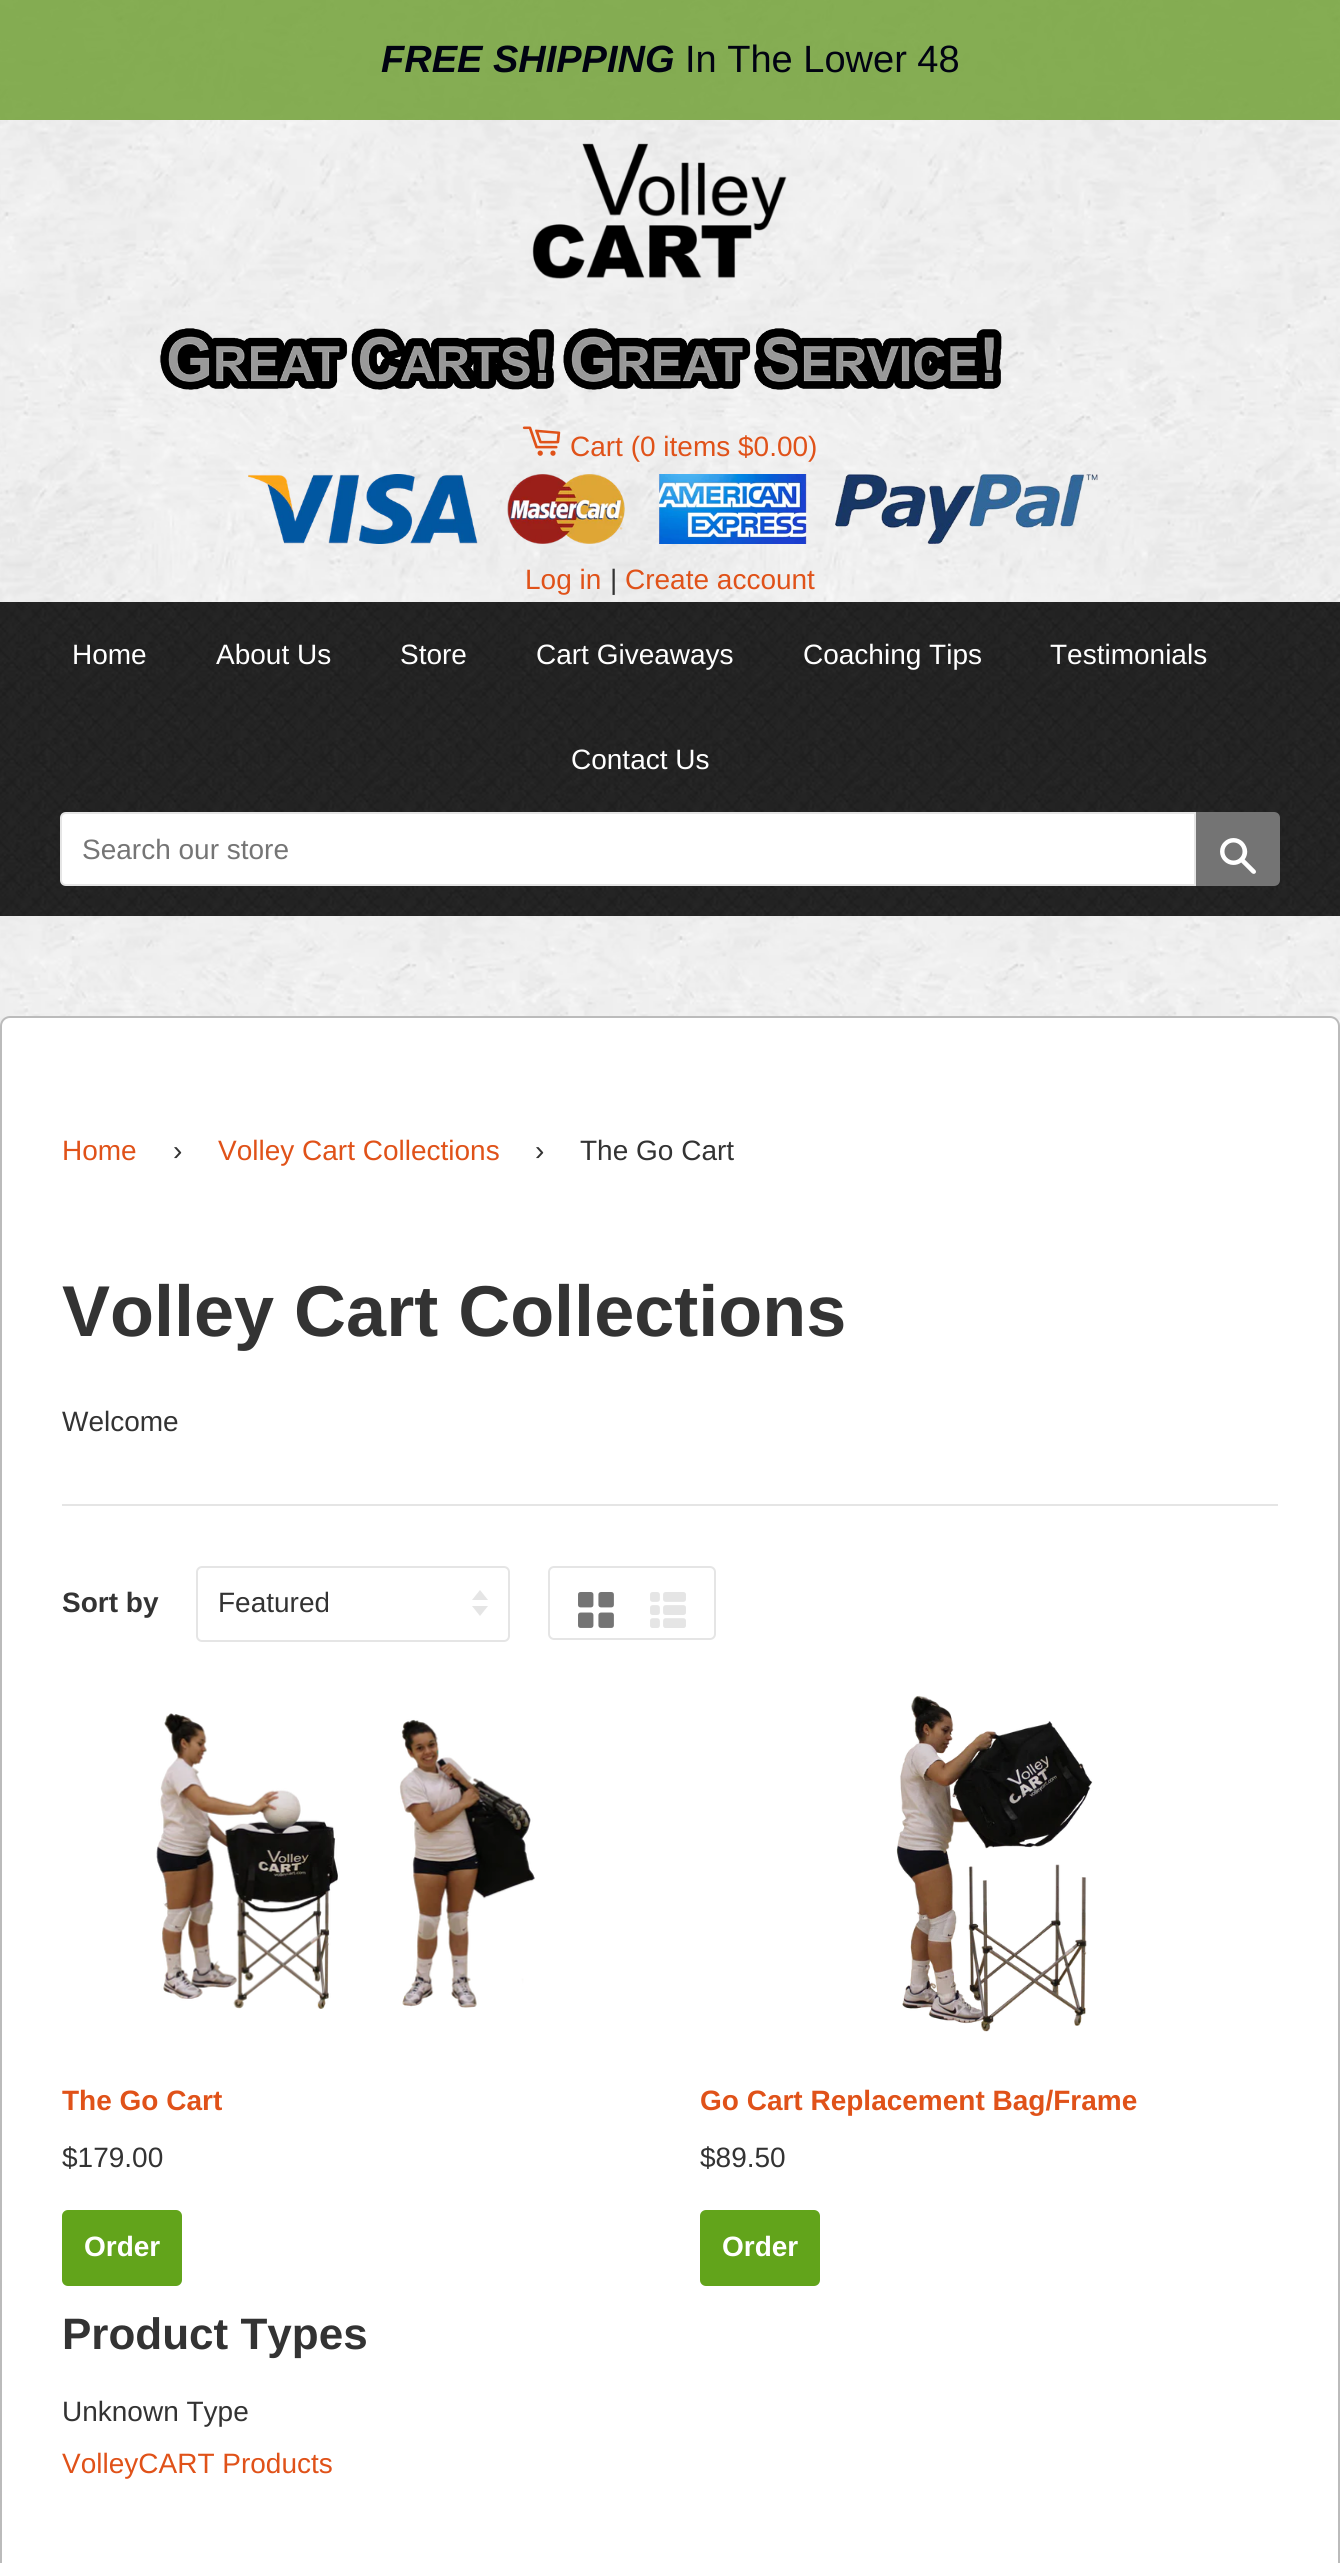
#include <cairo.h>
#include <math.h>
#include <stddef.h>

typedef struct { const char *family; double size; int italic, bold; unsigned color; } style_t;
static cairo_t *ctx;

static void ink(unsigned color) {
    cairo_set_source_rgb(ctx, (color >> 16) / 255.0, (color >> 8 & 255) / 255.0, (color & 255) / 255.0);
}

static void write(double x, double y, const char *s, const style_t *st) {
    cairo_select_font_face(ctx, st->family, st->italic ? CAIRO_FONT_SLANT_ITALIC : CAIRO_FONT_SLANT_NORMAL,
        st->bold ? CAIRO_FONT_WEIGHT_BOLD : CAIRO_FONT_WEIGHT_NORMAL);
    cairo_set_font_size(ctx, st->size);
    ink(st->color);
    cairo_move_to(ctx, x, y);
    cairo_show_text(ctx, s);
}

static void block(double x, double y, double w, double h, unsigned color) {
    ink(color);
    cairo_rectangle(ctx, x, y, w, h);
    cairo_fill(ctx);
}

static void round_path(double x, double y, double w, double h, double r) {
    cairo_new_sub_path(ctx);
    cairo_arc(ctx, x + w - r, y + h - r, r, 0, M_PI / 2);
    cairo_arc(ctx, x + r, y + h - r, r, M_PI / 2, M_PI);
    cairo_arc(ctx, x + r, y + r, r, M_PI, 1.5 * M_PI);
    cairo_arc(ctx, x + w - r, y + r, r, 1.5 * M_PI, 2 * M_PI);
    cairo_close_path(ctx);
}

static void paste(const char *path, double x, double y, double w, double h) {
    cairo_surface_t *image = cairo_image_surface_create_from_png(path);
    cairo_save(ctx);
    cairo_set_source_surface(ctx, image, x, y);
    cairo_rectangle(ctx, x, y, w, h);
    cairo_fill(ctx);
    cairo_restore(ctx);
    cairo_surface_destroy(image);
}

static const style_t s1 = {"Liberation Sans", 38, 1, 1, 0x010312};
static const style_t s2 = {"Liberation Sans", 38, 0, 0, 0x010312};
static const style_t s3 = {"Liberation Sans", 28, 0, 0, 0xe05219};
static const style_t s4 = {"Liberation Sans", 28, 0, 0, 0x333333};
static const style_t s5 = {"Liberation Sans", 28, 0, 0, 0xffffff};
static const style_t s6 = {"Liberation Sans", 28, 0, 0, 0x757575};
static const style_t s7 = {"Liberation Sans", 72, 0, 1, 0x333333};
static const style_t s8 = {"Liberation Sans", 28, 0, 1, 0x333333};
static const style_t s9 = {"Liberation Sans", 28, 0, 1, 0xe05219};
static const style_t s10 = {"Liberation Sans", 28, 0, 1, 0xffffff};
static const style_t s11 = {"Liberation Sans", 44, 0, 1, 0x333333};

int main(void) {
    cairo_surface_t *surface = cairo_image_surface_create(CAIRO_FORMAT_RGB24, 1340, 2563);
    ctx = cairo_create(surface);
    cairo_font_options_t *options = cairo_font_options_create();
    cairo_font_options_set_hint_metrics(options, CAIRO_HINT_METRICS_OFF);
    cairo_font_options_set_hint_style(options, CAIRO_HINT_STYLE_NONE);
    cairo_set_font_options(ctx, options);
    cairo_set_miter_limit(ctx, 4);
    ink(0xffffff);
    cairo_paint(ctx);
    paste("pic1.png", 0, 0, 1340, 1026);
    cairo_set_source_rgba(ctx, 0.447, 0.631, 0.22, 0.85);
    cairo_rectangle(ctx, 0, 0, 1340, 120);
    cairo_fill(ctx);
    write(381, 72, "FREE SHIPPING", &s1);
    write(685, 72, "In The Lower 48", &s2);
    paste("pic2.png", 532, 143, 255, 136);
    paste("pic3.png", 159, 328, 843, 62);
    paste("pic4.png", 522, 426, 39, 30);
    write(570, 456, "Cart (0 items $0.00)", &s3);
    paste("pic5.png", 248, 474, 850, 70);
    write(525, 589, "Log in", &s3);
    write(610, 589, "|", &s4);
    write(625, 589, "Create account", &s3);
    paste("pic6.png", 0, 602, 1340, 314);
    write(72, 664, "Home", &s5);
    write(216, 664, "About Us", &s5);
    write(400, 664, "Store", &s5);
    write(536, 664, "Cart Giveaways", &s5);
    write(803, 664, "Coaching Tips", &s5);
    write(1050, 664, "Testimonials", &s5);
    write(571, 769, "Contact Us", &s5);
    cairo_new_path(ctx);
    cairo_move_to(ctx, 66, 813);
    cairo_line_to(ctx, 1195, 813);
    cairo_line_to(ctx, 1195, 885);
    cairo_line_to(ctx, 66, 885);
    cairo_curve_to(ctx, 63, 885, 61, 883, 61, 880);
    cairo_line_to(ctx, 61, 818);
    cairo_curve_to(ctx, 61, 815, 63, 813, 66, 813);
    cairo_close_path(ctx);
    cairo_fill_preserve(ctx);
    ink(0xe5e5e5);
    cairo_stroke(ctx);
    write(82, 859, "Search our store", &s6);
    ink(0x747474);
    cairo_new_path(ctx);
    cairo_move_to(ctx, 1196, 812);
    cairo_line_to(ctx, 1274, 812);
    cairo_curve_to(ctx, 1277.5, 812, 1280, 814.5, 1280, 818);
    cairo_line_to(ctx, 1280, 880);
    cairo_curve_to(ctx, 1280, 883.5, 1277.5, 886, 1274, 886);
    cairo_line_to(ctx, 1196, 886);
    cairo_close_path(ctx);
    cairo_fill(ctx);
    paste("pic7.png", 1220, 838, 36, 36);
    ink(0xffffff);
    round_path(1, 1017, 1338, 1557, 9);
    cairo_fill_preserve(ctx);
    ink(0xbbbbbb);
    cairo_stroke(ctx);
    write(62, 1160, "Home", &s3);
    write(173, 1160, "›", &s4);
    write(218, 1160, "Volley Cart Collections", &s3);
    write(535, 1160, "›", &s4);
    write(580, 1160, "The Go Cart", &s4);
    write(62, 1336, "Volley Cart Collections", &s7);
    write(62, 1431, "Welcome", &s4);
    block(62, 1504, 1216, 2, 0xe5e5e5);
    write(62, 1612, "Sort by", &s8);
    ink(0xe5e5e5);
    cairo_new_path(ctx);
    cairo_move_to(ctx, 472, 1606);
    cairo_line_to(ctx, 480, 1616);
    cairo_line_to(ctx, 488, 1606);
    cairo_close_path(ctx);
    cairo_move_to(ctx, 480, 1590);
    cairo_line_to(ctx, 472, 1600);
    cairo_line_to(ctx, 488, 1600);
    cairo_close_path(ctx);
    cairo_fill(ctx);
    round_path(197, 1567, 312, 74, 5);
    cairo_stroke(ctx);
    write(218, 1612, "Featured", &s4);
    round_path(549, 1567, 166, 72, 5);
    ink(0xe5e5e5);
    cairo_stroke(ctx);
    paste("pic8.png", 578, 1592, 36, 36);
    paste("pic9.png", 650, 1592, 36, 36);
    paste("pic10.png", 156, 1713, 379, 296);
    write(62, 2110, "The Go Cart", &s9);
    write(62, 2167, "$179.00", &s4);
    ink(0x62a41b);
    round_path(62, 2210, 120, 76, 6);
    cairo_fill(ctx);
    write(84, 2256, "Order", &s10);
    paste("pic11.png", 896, 1695, 197, 337);
    write(700, 2110, "Go Cart Replacement Bag/Frame", &s9);
    write(700, 2167, "$89.50", &s4);
    ink(0x62a41b);
    round_path(700, 2210, 120, 76, 6);
    cairo_fill(ctx);
    write(722, 2256, "Order", &s10);
    write(62, 2349, "Product Types", &s11);
    write(62, 2421, "Unknown Type", &s4);
    write(62, 2473, "VolleyCART Products", &s3);
    cairo_surface_write_to_png(surface, "screenshot.png");
    cairo_font_options_destroy(options);
    cairo_destroy(ctx);
    cairo_surface_destroy(surface);
    return 0;
}
